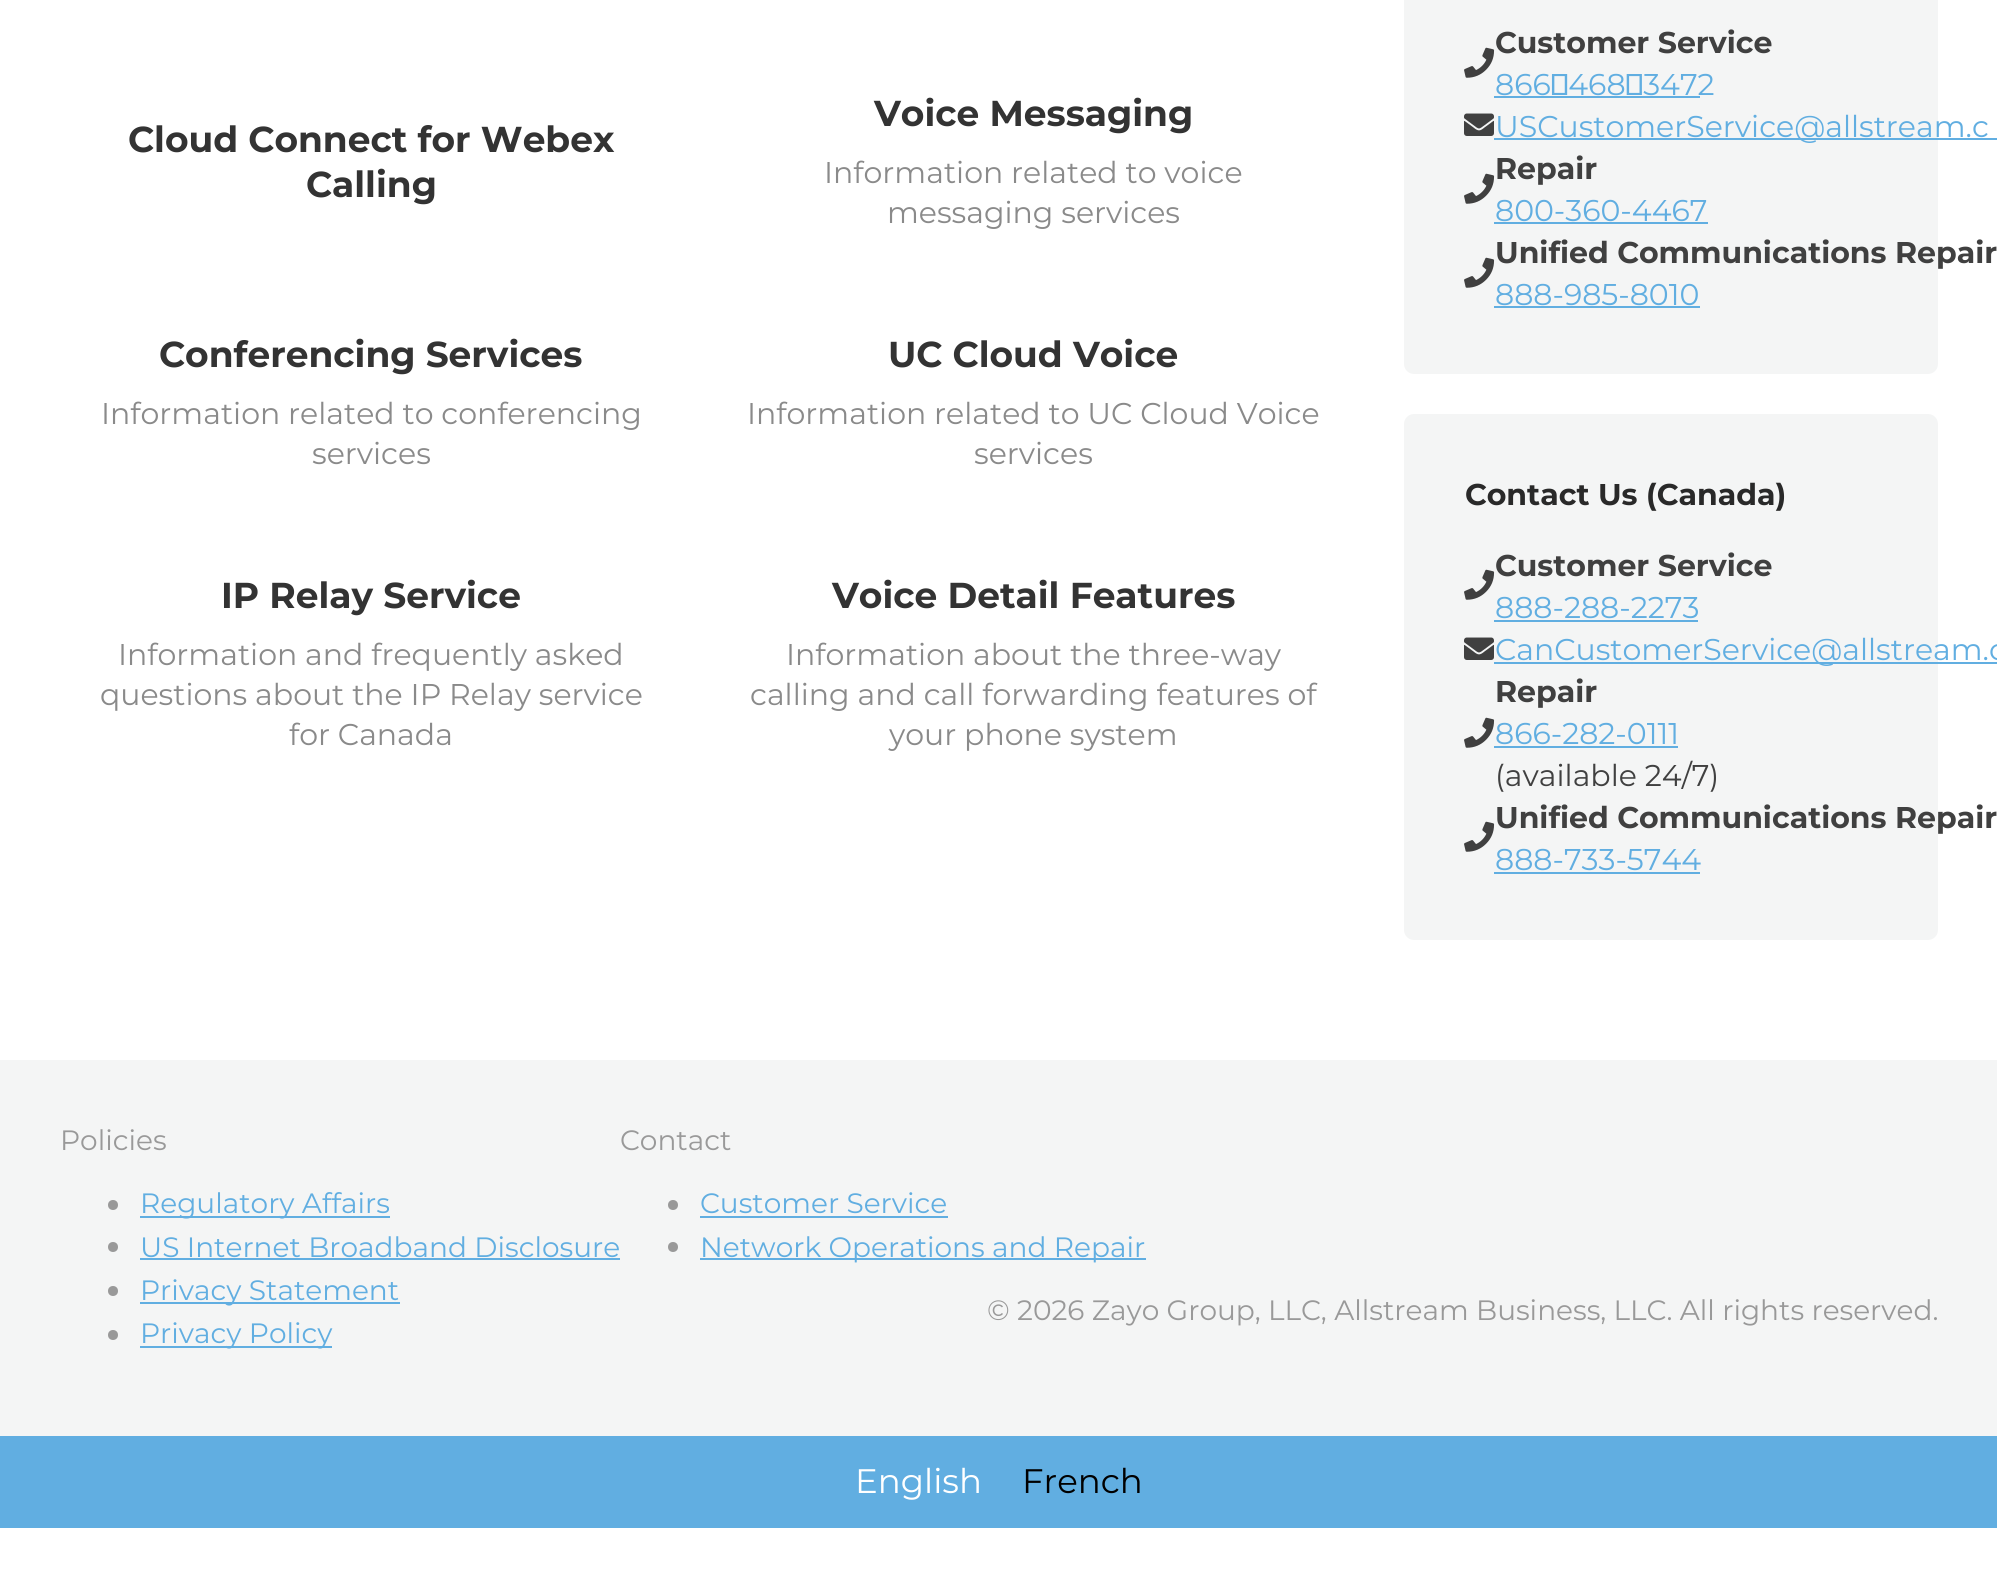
#include <cairo.h>
#include <math.h>
#include <stddef.h>

typedef struct { const char *family; double size; int italic, bold; unsigned color; } style_t;
static cairo_t *ctx;

static void ink(unsigned color) {
    cairo_set_source_rgb(ctx, (color >> 16) / 255.0, (color >> 8 & 255) / 255.0, (color & 255) / 255.0);
}

static void write(double x, double y, const char *s, const style_t *st) {
    cairo_select_font_face(ctx, st->family, st->italic ? CAIRO_FONT_SLANT_ITALIC : CAIRO_FONT_SLANT_NORMAL,
        st->bold ? CAIRO_FONT_WEIGHT_BOLD : CAIRO_FONT_WEIGHT_NORMAL);
    cairo_set_font_size(ctx, st->size);
    ink(st->color);
    cairo_move_to(ctx, x, y);
    cairo_show_text(ctx, s);
}

static void block(double x, double y, double w, double h, unsigned color) {
    ink(color);
    cairo_rectangle(ctx, x, y, w, h);
    cairo_fill(ctx);
}

static void round_path(double x, double y, double w, double h, double r) {
    cairo_new_sub_path(ctx);
    cairo_arc(ctx, x + w - r, y + h - r, r, 0, M_PI / 2);
    cairo_arc(ctx, x + r, y + h - r, r, M_PI / 2, M_PI);
    cairo_arc(ctx, x + r, y + r, r, M_PI, 1.5 * M_PI);
    cairo_arc(ctx, x + w - r, y + r, r, 1.5 * M_PI, 2 * M_PI);
    cairo_close_path(ctx);
}

static void paste(const char *path, double x, double y, double w, double h) {
    cairo_surface_t *image = cairo_image_surface_create_from_png(path);
    cairo_save(ctx);
    cairo_set_source_surface(ctx, image, x, y);
    cairo_rectangle(ctx, x, y, w, h);
    cairo_fill(ctx);
    cairo_restore(ctx);
    cairo_surface_destroy(image);
}

static const style_t s1 = {"Montserrat", 36, 0, 1, 0x333333};
static const style_t s2 = {"Montserrat", 30, 0, 0, 0x8a8a8a};
static const style_t s3 = {"Montserrat", 30, 0, 1, 0x404040};
static const style_t s4 = {"Montserrat", 30, 0, 0, 0x61aee1};
static const style_t s5 = {"Montserrat", 30, 0, 1, 0x292929};
static const style_t s6 = {"Montserrat", 30, 0, 0, 0x404040};
static const style_t s7 = {"Montserrat", 28, 0, 0, 0x999999};
static const style_t s8 = {"Montserrat", 28, 0, 0, 0x61aee1};
static const style_t s9 = {"Montserrat", 34, 0, 0, 0xffffff};
static const style_t s10 = {"Montserrat", 34, 0, 0, 0x000000};

int main(void) {
    cairo_surface_t *surface = cairo_image_surface_create(CAIRO_FORMAT_RGB24, 1997, 1587);
    ctx = cairo_create(surface);
    cairo_font_options_t *options = cairo_font_options_create();
    cairo_font_options_set_hint_metrics(options, CAIRO_HINT_METRICS_OFF);
    cairo_font_options_set_hint_style(options, CAIRO_HINT_STYLE_NONE);
    cairo_set_font_options(ctx, options);
    cairo_set_miter_limit(ctx, 4);
    ink(0xffffff);
    cairo_paint(ctx);
    write(128, 152, "Cloud Connect for Webex", &s1);
    write(306, 197, "Calling", &s1);
    write(874, 126, "Voice Messaging", &s1);
    write(824, 183, "Information related to voice", &s2);
    write(887, 223, "messaging services", &s2);
    write(159, 367, "Conferencing Services", &s1);
    write(101, 424, "Information related to conferencing", &s2);
    write(312, 464, "services", &s2);
    write(888, 367, "UC Cloud Voice", &s1);
    write(747, 424, "Information related to UC Cloud Voice", &s2);
    write(974, 464, "services", &s2);
    write(221, 608, "IP Relay Service", &s1);
    write(118, 665, "Information and frequently asked", &s2);
    write(100, 705, "questions about the IP Relay service", &s2);
    write(289, 745, "for Canada", &s2);
    write(832, 608, "Voice Detail Features", &s1);
    write(786, 665, "Information about the three-way", &s2);
    write(750, 705, "calling and call forwarding features of", &s2);
    write(889, 745, "your phone system", &s2);
    ink(0xf4f5f5);
    round_path(1404, -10, 534, 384, 10);
    cairo_fill(ctx);
    paste("pic1.png", 1464, 47, 31, 31);
    write(1495, 53, "Customer Service", &s3);
    write(1495, 95, "866‑468‑3472", &s4);
    block(1494, 96, 206, 2, 0x61aee1);
    paste("pic2.png", 1464, 113, 30, 23);
    block(1494, 138, 503, 2, 0x61aee1);
    write(1495, 137, "USCustomerService@allstream.c", &s4);
    paste("pic1.png", 1464, 173, 31, 31);
    write(1495, 179, "Repair", &s3);
    write(1495, 221, "800-360-4467", &s4);
    block(1494, 222, 214, 2, 0x61aee1);
    paste("pic1.png", 1464, 257, 31, 31);
    write(1495, 263, "Unified Communications Repair", &s3);
    write(1495, 305, "888-985-8010", &s4);
    block(1494, 306, 206, 2, 0x61aee1);
    ink(0xf4f5f5);
    round_path(1404, 414, 534, 526, 10);
    cairo_fill(ctx);
    write(1465, 505, "Contact Us (Canada)", &s5);
    paste("pic1.png", 1464, 569, 31, 31);
    write(1495, 576, "Customer Service", &s3);
    write(1495, 618, "888-288-2273", &s4);
    block(1494, 620, 204, 2, 0x61aee1);
    paste("pic2.png", 1464, 637, 30, 23);
    block(1494, 662, 503, 2, 0x61aee1);
    write(1495, 660, "CanCustomerService@allstream.c", &s4);
    paste("pic1.png", 1464, 717, 31, 31);
    write(1495, 702, "Repair", &s3);
    write(1495, 744, "866-282-0111", &s4);
    block(1494, 746, 184, 2, 0x61aee1);
    write(1495, 786, "(available 24/7)", &s6);
    paste("pic1.png", 1464, 821, 31, 31);
    write(1495, 828, "Unified Communications Repair", &s3);
    write(1495, 870, "888-733-5744", &s4);
    block(1494, 872, 206, 2, 0x61aee1);
    block(0, 1060, 1997, 376, 0xf4f5f5);
    write(60, 1150, "Policies", &s7);
    cairo_new_path(ctx);
    cairo_arc(ctx, 113, 1205, 5, 0, 2 * M_PI);
    cairo_fill(ctx);
    block(140, 1216, 250, 2, 0x61aee1);
    write(140, 1213, "Regulatory Affairs", &s8);
    ink(0x999999);
    cairo_new_path(ctx);
    cairo_arc(ctx, 113, 1247, 5, 0, 2 * M_PI);
    cairo_fill(ctx);
    write(140, 1257, "US Internet Broadband Disclosure", &s8);
    block(140, 1258, 480, 2, 0x61aee1);
    ink(0x999999);
    cairo_new_path(ctx);
    cairo_arc(ctx, 113, 1291, 5, 0, 2 * M_PI);
    cairo_fill(ctx);
    block(140, 1302, 260, 2, 0x61aee1);
    write(140, 1300, "Privacy Statement", &s8);
    ink(0x999999);
    cairo_new_path(ctx);
    cairo_arc(ctx, 113, 1335, 5, 0, 2 * M_PI);
    cairo_fill(ctx);
    block(140, 1346, 192, 2, 0x61aee1);
    write(140, 1343, "Privacy Policy", &s8);
    write(620, 1150, "Contact", &s7);
    cairo_new_path(ctx);
    cairo_arc(ctx, 673, 1205, 5, 0, 2 * M_PI);
    cairo_fill(ctx);
    write(700, 1213, "Customer Service", &s8);
    block(700, 1216, 248, 2, 0x61aee1);
    ink(0x999999);
    cairo_new_path(ctx);
    cairo_arc(ctx, 673, 1247, 5, 0, 2 * M_PI);
    cairo_fill(ctx);
    block(700, 1258, 446, 2, 0x61aee1);
    write(700, 1257, "Network Operations and Repair", &s8);
    write(987, 1320, "© 2026 Zayo Group, LLC, Allstream Business, LLC. All rights reserved.", &s7);
    block(0, 1436, 1997, 92, 0x61aee1);
    write(855, 1493, "English", &s9);
    write(1022, 1493, "French", &s10);
    cairo_surface_write_to_png(surface, "screenshot.png");
    cairo_font_options_destroy(options);
    cairo_destroy(ctx);
    cairo_surface_destroy(surface);
    return 0;
}
